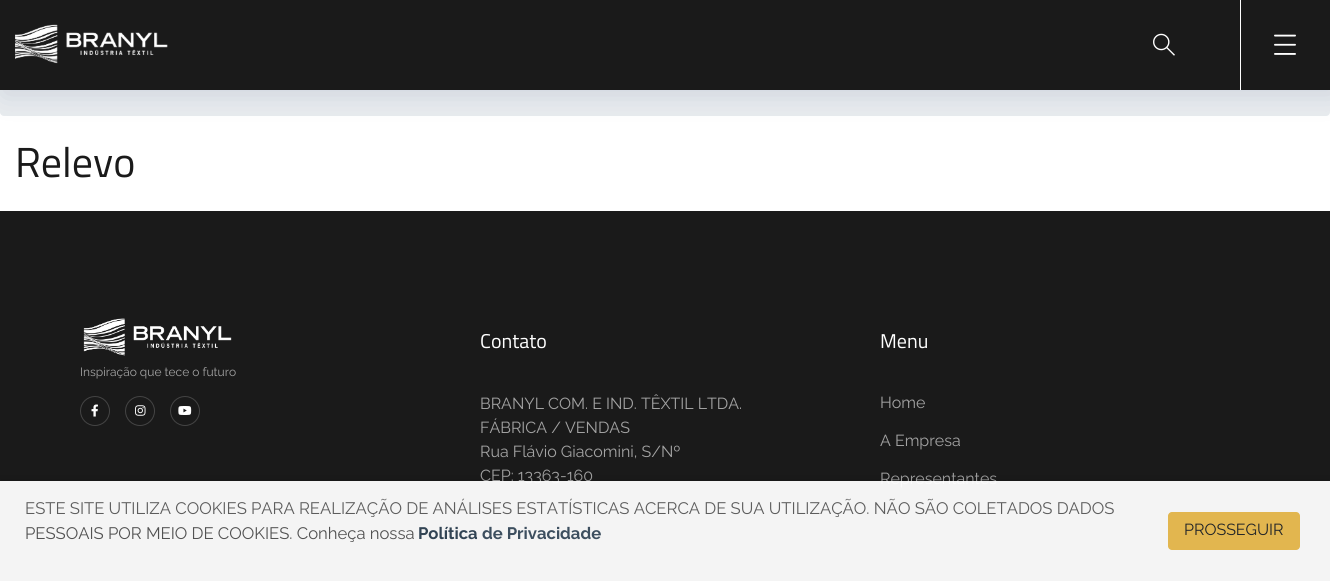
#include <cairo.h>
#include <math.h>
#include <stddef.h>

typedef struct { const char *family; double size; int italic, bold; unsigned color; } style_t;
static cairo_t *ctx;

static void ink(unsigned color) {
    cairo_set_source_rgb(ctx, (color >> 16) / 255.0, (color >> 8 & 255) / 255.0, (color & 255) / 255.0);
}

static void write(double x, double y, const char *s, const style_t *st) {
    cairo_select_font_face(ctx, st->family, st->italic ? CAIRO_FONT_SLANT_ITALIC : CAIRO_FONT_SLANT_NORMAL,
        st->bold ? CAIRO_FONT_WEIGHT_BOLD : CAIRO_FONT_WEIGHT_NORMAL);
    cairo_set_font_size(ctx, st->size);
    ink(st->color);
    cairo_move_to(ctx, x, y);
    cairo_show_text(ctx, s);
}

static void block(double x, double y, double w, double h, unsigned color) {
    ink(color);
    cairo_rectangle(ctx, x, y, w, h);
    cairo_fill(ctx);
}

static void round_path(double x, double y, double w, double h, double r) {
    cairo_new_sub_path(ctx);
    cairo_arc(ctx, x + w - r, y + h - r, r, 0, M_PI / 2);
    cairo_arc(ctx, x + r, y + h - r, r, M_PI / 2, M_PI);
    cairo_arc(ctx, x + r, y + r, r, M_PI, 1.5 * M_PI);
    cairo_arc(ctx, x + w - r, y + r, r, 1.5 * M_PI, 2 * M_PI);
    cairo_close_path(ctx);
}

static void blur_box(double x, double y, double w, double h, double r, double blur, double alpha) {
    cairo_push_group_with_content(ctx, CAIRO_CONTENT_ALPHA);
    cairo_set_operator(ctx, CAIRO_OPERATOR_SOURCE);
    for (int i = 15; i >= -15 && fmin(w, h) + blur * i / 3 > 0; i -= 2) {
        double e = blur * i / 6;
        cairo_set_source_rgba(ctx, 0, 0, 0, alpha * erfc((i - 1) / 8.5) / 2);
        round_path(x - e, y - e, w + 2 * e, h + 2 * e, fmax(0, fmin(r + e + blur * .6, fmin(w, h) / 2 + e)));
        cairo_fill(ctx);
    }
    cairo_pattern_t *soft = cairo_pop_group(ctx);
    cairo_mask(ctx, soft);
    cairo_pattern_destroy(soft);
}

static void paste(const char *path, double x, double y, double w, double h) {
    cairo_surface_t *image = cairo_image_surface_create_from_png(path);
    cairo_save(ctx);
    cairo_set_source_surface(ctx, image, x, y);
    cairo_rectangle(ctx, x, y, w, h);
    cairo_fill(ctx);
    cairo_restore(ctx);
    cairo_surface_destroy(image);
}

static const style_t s1 = {"Titillium Web", 42, 0, 0, 0x1a1a1a};
static const style_t s2 = {"Raleway", 12, 0, 0, 0xa3a3a3};
static const style_t s3 = {"Titillium Web", 20, 0, 0, 0xffffff};
static const style_t s4 = {"Raleway", 16, 0, 0, 0xa3a3a3};
static const style_t s5 = {"Raleway", 16.65, 0, 0, 0x5d5d5d};
static const style_t s6 = {"Raleway", 16.65, 0, 0, 0x525252};
static const style_t s7 = {"Raleway", 16.65, 0, 1, 0x324454};
static const style_t s8 = {"Raleway", 16.65, 0, 1, 0x3d4f5f};
static const style_t s9 = {"Raleway", 16, 0, 0, 0x212428};

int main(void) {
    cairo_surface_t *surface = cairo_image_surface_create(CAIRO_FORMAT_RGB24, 1330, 581);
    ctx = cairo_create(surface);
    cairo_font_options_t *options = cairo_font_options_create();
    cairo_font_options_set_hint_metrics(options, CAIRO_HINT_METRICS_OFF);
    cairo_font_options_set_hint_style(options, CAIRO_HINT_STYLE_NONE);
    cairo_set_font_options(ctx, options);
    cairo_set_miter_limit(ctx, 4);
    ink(0xffffff);
    cairo_paint(ctx);
    ink(0xe9ecef);
    round_path(0, 0, 1330, 116, 4);
    cairo_fill(ctx);
    ink(0x2a4371);
    blur_box(4, 4, 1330, 90, 0, 15, 0.15);
    block(0, 0, 1330, 90, 0x1a1a1a);
    paste("pic1.png", 15, 24, 153, 40);
    paste("pic2.png", 1153, 33, 22, 23);
    block(1240, 0, 1, 90, 0xffffff);
    paste("pic3.png", 1274, 34, 22, 21);
    write(15, 177, "Relevo", &s1);
    block(0, 211, 1330, 370, 0x1a1a1a);
    paste("pic4.png", 83, 318, 149, 38);
    write(80, 376, "Inspiração que tece o futuro", &s2);
    cairo_new_path(ctx);
    cairo_arc(ctx, 95, 411, 14.5, 0, 2 * M_PI);
    ink(0x444444);
    cairo_set_line_width(ctx, 1);
    cairo_stroke(ctx);
    paste("pic5.png", 91, 404, 7, 13);
    cairo_arc(ctx, 140, 411, 14.5, 0, 2 * M_PI);
    cairo_stroke(ctx);
    paste("pic6.png", 135, 405, 11, 11);
    cairo_arc(ctx, 185, 411, 14.5, 0, 2 * M_PI);
    cairo_stroke(ctx);
    paste("pic7.png", 178, 406, 14, 9);
    write(480, 348, "Contato", &s3);
    write(480, 409, "BRANYL COM. E IND. TÊXTIL LTDA.", &s4);
    write(480, 433, "FÁBRICA / VENDAS", &s4);
    write(480, 457, "Rua Flávio Giacomini, S/Nº", &s4);
    write(480, 481, "CEP: 13363-160", &s4);
    write(880, 348, "Menu", &s3);
    write(880, 408, "Home", &s4);
    write(880, 446, "A Empresa", &s4);
    write(880, 484, "Representantes", &s4);
    cairo_save(ctx);
    cairo_rectangle(ctx, 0, 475, 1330, 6);
    cairo_clip(ctx);
    ink(0x000000);
    blur_box(0, 478, 1330, 100, 0, 4, 0.1);
    cairo_restore(ctx);
    cairo_set_source_rgba(ctx, 1, 1, 1, 0.95);
    cairo_rectangle(ctx, 0, 481, 1330, 100);
    cairo_fill(ctx);
    write(25, 514, "ESTE SITE UTILIZA COOKIES PARA REALIZAÇÃO DE ANÁLISES ESTATÍSTICAS ACERCA DE SUA UTILIZAÇÃO. NÃO SÃO COLETADOS DADOS", &s5);
    write(25, 539, "PESSOAIS POR MEIO DE COOKIES. Conheça nossa", &s6);
    write(418, 539, "Política", &s7);
    write(482, 539, "de Privacidade", &s8);
    ink(0xe2b64f);
    round_path(1168, 512, 132, 38, 4);
    cairo_fill(ctx);
    write(1184, 535, "PROSSEGUIR", &s9);
    cairo_surface_write_to_png(surface, "screenshot.png");
    cairo_font_options_destroy(options);
    cairo_destroy(ctx);
    cairo_surface_destroy(surface);
    return 0;
}
